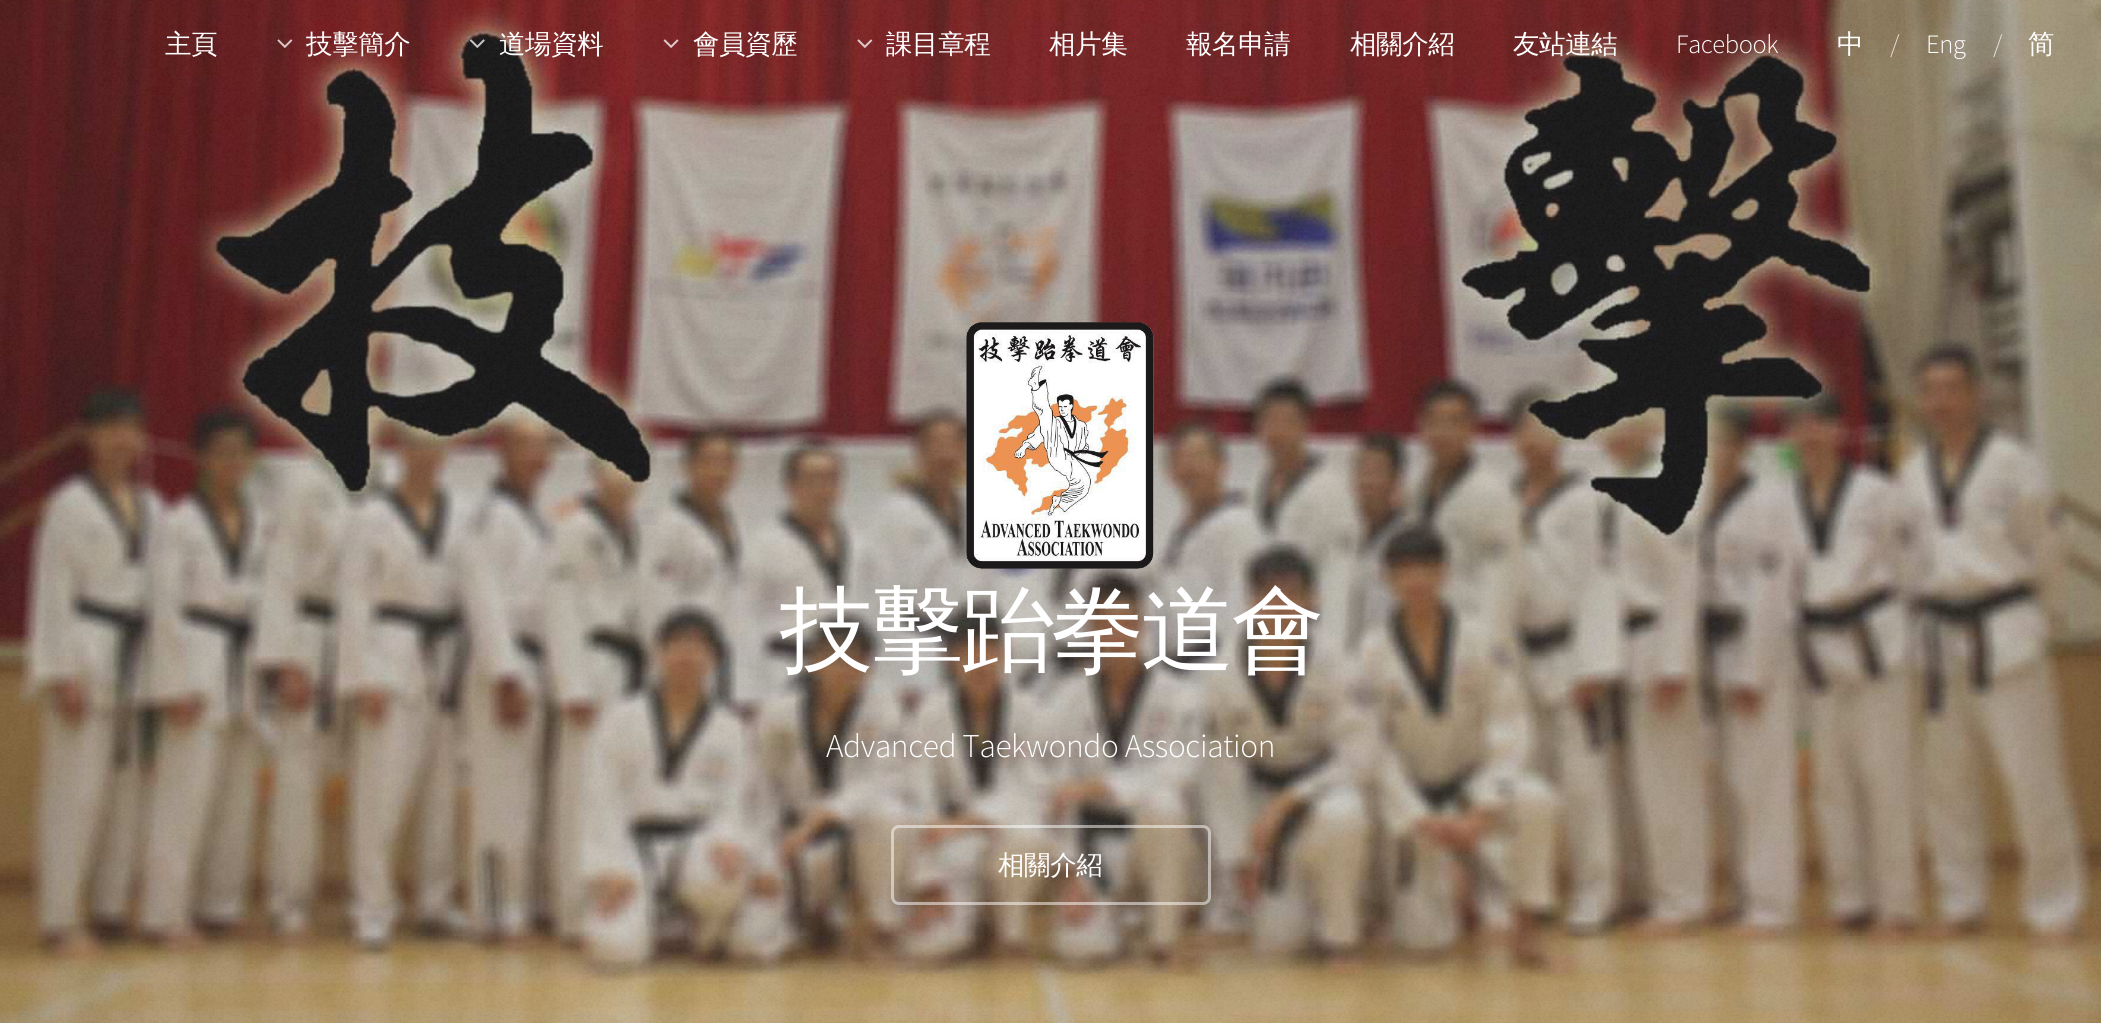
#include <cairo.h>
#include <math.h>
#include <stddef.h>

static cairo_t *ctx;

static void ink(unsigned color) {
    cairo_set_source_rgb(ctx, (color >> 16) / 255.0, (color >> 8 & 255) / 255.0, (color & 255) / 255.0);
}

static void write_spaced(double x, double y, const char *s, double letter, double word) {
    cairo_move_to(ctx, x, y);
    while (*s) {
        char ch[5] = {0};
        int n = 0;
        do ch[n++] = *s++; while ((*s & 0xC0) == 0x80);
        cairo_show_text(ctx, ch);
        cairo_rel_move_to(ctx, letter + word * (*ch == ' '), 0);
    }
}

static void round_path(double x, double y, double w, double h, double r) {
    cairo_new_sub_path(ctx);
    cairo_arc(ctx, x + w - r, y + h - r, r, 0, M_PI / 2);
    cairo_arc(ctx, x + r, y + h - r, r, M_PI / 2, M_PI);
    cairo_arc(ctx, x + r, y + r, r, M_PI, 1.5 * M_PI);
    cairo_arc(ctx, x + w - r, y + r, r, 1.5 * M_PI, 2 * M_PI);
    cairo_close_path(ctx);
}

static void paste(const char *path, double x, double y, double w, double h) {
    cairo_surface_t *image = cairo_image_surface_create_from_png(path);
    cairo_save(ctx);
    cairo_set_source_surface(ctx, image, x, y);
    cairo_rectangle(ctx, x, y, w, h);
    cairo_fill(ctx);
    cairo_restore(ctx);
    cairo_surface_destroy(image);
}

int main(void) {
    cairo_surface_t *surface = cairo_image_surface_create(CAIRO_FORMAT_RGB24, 2101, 1023);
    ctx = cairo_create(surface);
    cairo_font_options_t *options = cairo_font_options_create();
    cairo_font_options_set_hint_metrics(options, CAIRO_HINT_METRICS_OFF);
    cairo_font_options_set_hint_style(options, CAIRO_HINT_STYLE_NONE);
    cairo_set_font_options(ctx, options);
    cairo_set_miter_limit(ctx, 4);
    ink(0xffffff);
    cairo_paint(ctx);
    paste("pic5.png", 0, 0, 2101, 1023);
    cairo_select_font_face(ctx, "WenQuanYi Zen Hei Medium", CAIRO_FONT_SLANT_NORMAL, CAIRO_FONT_WEIGHT_NORMAL);
    cairo_set_font_size(ctx, 26.5);
    ink(0xffffff);
    write_spaced(165, 53, "主頁", -0.4, 0);
    paste("pic1.png", 277, 39, 16, 9);
    write_spaced(306, 53, "技擊簡介", -0.4, 0);
    paste("pic2.png", 470, 39, 15, 9);
    write_spaced(499, 53, "道場資料", -0.4, 0);
    paste("pic3.png", 663, 39, 16, 9);
    write_spaced(693, 53, "會員資歷", -0.4, 0);
    paste("pic4.png", 857, 39, 16, 9);
    write_spaced(886, 53, "課目章程", -0.4, 0);
    write_spaced(1049, 53, "相片集", -0.4, 0);
    write_spaced(1186, 53, "報名申請", -0.4, 0);
    write_spaced(1350, 53, "相關介紹", -0.4, 0);
    write_spaced(1513, 53, "友站連結", -0.4, 0);
    cairo_select_font_face(ctx, "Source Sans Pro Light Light", CAIRO_FONT_SLANT_NORMAL, CAIRO_FONT_WEIGHT_NORMAL);
    write_spaced(1676, 53, "Facebook", -0.4, 0);
    cairo_select_font_face(ctx, "WenQuanYi Zen Hei Medium", CAIRO_FONT_SLANT_NORMAL, CAIRO_FONT_WEIGHT_NORMAL);
    write_spaced(1837, 53, "中", -0.4, 0);
    cairo_select_font_face(ctx, "Source Sans Pro Light Light", CAIRO_FONT_SLANT_NORMAL, CAIRO_FONT_WEIGHT_NORMAL);
    ink(0xe2ded7);
    write_spaced(1890, 53, "/", -0.4, 0);
    ink(0xffffff);
    write_spaced(1926, 53, "Eng", -0.4, 0);
    ink(0xe4e2dd);
    write_spaced(1993, 53, "/", -0.4, 0);
    cairo_select_font_face(ctx, "WenQuanYi Zen Hei Medium", CAIRO_FONT_SLANT_NORMAL, CAIRO_FONT_WEIGHT_NORMAL);
    ink(0xffffff);
    write_spaced(2028, 53, "简", -0.4, 0);
    paste("pic6.png", 966, 322, 188, 247);
    cairo_set_font_size(ctx, 93.5);
    write_spaced(780, 662, "技擊跆拳道會", -3.25, 0);
    cairo_select_font_face(ctx, "Source Sans Pro Light Light", CAIRO_FONT_SLANT_NORMAL, CAIRO_FONT_WEIGHT_NORMAL);
    cairo_set_font_size(ctx, 33.3);
    write_spaced(826, 757, "Advanced Taekwondo Association", -0.4, 0);
    round_path(892.5, 826.5, 317, 77, 6.5);
    cairo_set_source_rgba(ctx, 1, 1, 1, 0.5);
    cairo_set_line_width(ctx, 3);
    cairo_stroke(ctx);
    cairo_select_font_face(ctx, "WenQuanYi Zen Hei Medium", CAIRO_FONT_SLANT_NORMAL, CAIRO_FONT_WEIGHT_NORMAL);
    cairo_set_font_size(ctx, 26.5);
    ink(0xffffff);
    write_spaced(998, 874, "相關介紹", -0.4, 0);
    cairo_surface_write_to_png(surface, "screenshot.png");
    cairo_font_options_destroy(options);
    cairo_destroy(ctx);
    cairo_surface_destroy(surface);
    return 0;
}
